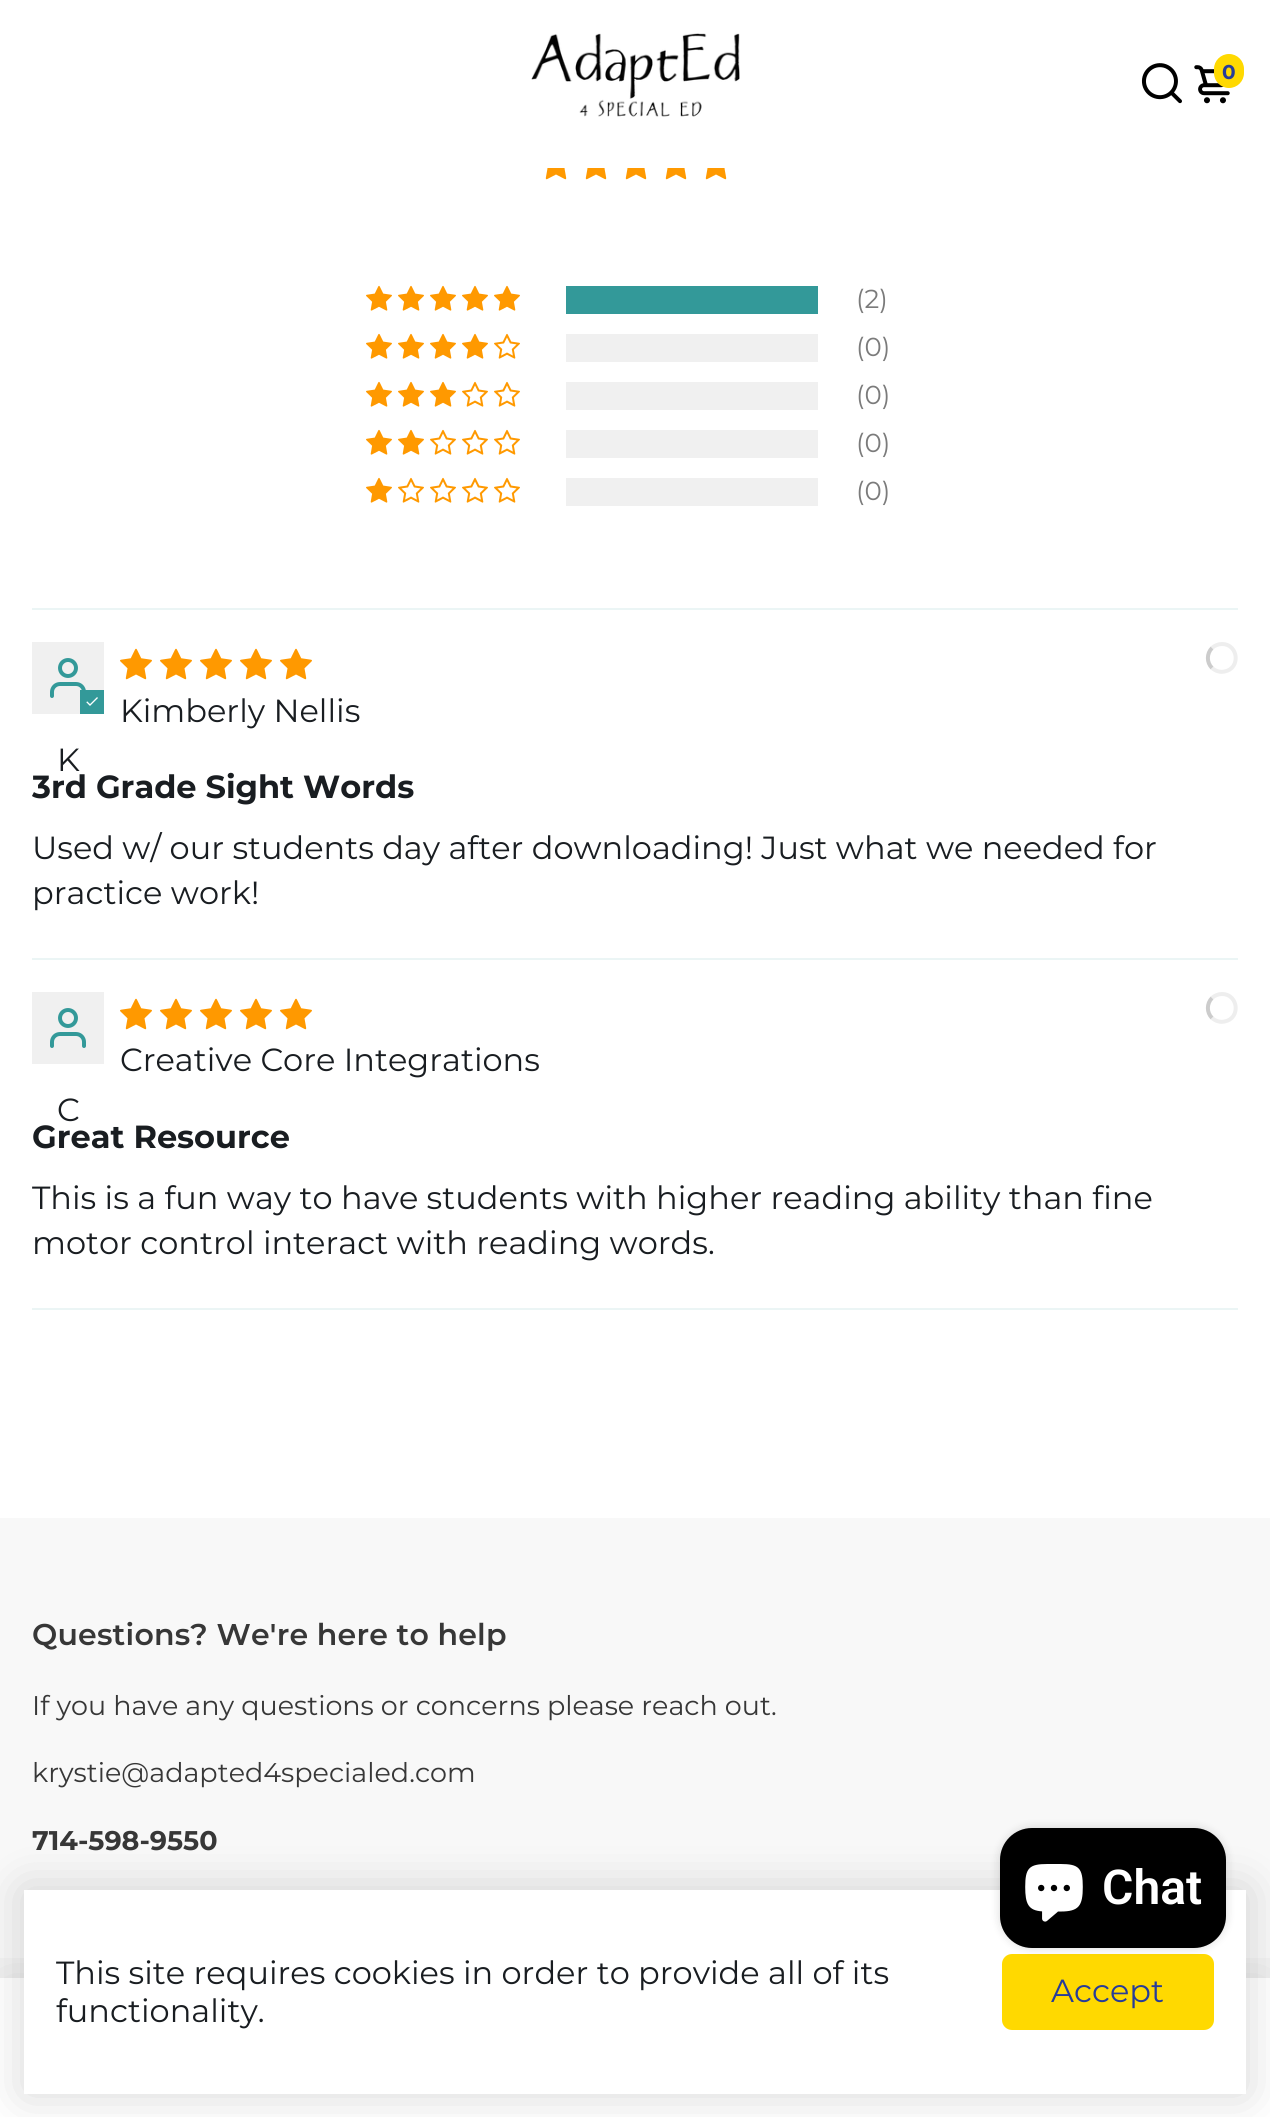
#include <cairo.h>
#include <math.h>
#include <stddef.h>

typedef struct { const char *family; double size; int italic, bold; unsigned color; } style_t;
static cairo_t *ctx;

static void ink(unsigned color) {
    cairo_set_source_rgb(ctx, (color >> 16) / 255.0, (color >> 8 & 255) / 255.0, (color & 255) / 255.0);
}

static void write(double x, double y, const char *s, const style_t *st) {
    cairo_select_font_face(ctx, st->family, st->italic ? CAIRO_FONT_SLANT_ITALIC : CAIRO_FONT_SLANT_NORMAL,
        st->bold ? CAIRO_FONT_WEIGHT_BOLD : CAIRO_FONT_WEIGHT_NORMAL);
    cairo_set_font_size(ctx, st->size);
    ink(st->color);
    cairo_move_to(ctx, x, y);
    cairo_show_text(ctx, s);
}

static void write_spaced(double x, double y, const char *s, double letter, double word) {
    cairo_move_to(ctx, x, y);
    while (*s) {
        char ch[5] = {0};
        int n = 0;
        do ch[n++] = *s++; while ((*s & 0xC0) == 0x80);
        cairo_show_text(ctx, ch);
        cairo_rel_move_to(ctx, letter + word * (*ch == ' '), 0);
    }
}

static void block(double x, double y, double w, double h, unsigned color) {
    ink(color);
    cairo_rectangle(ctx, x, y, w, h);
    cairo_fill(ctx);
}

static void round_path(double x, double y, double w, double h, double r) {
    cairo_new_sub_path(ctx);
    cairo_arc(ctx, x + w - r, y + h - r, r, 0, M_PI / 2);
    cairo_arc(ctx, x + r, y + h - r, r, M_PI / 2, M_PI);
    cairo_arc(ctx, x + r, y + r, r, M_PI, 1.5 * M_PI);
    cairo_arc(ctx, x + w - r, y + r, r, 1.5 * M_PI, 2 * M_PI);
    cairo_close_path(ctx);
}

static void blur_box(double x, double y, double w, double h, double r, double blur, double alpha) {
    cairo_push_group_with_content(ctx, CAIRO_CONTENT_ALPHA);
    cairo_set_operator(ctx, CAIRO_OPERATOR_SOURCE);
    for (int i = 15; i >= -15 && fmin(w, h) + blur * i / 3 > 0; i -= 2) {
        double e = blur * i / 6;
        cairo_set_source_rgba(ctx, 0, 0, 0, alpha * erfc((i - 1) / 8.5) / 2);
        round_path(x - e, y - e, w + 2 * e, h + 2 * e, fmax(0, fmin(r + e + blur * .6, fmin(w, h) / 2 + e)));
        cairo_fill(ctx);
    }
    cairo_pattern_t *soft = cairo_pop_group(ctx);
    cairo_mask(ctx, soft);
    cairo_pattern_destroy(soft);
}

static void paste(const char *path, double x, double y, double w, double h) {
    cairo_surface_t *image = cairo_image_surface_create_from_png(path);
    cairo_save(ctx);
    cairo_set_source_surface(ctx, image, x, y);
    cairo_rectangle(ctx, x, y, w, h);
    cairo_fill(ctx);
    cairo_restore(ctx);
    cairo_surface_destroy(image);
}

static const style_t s1 = {"Montserrat", 20, 0, 1, 0x273c99};
static const style_t s2 = {"Montserrat", 26, 0, 0, 0x7b7b7b};
static const style_t s3 = {"Montserrat", 32, 0, 0, 0x191d21};
static const style_t s4 = {"Montserrat", 32, 0, 1, 0x191d21};
static const style_t s5 = {"Montserrat", 27, 0, 0, 0x373737};
static const style_t s6 = {"Montserrat", 27, 0, 1, 0x373737};
static const style_t s7 = {"Roboto SemiBold", 48, 0, 0, 0xffffff};
static const style_t s8 = {"Montserrat", 32, 0, 0, 0x273c99};

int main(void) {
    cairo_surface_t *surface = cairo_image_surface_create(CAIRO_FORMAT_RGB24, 1270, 2117);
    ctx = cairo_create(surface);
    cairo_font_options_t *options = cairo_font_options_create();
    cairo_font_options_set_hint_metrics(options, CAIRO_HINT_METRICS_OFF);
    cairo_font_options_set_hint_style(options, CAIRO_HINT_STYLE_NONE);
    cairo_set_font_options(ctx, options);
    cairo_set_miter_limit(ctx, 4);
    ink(0xffffff);
    cairo_paint(ctx);
    paste("pic1.png", 531, 33, 209, 84);
    paste("pic2.png", 1141, 63, 41, 41);
    paste("pic3.png", 1194, 65, 36, 39);
    ink(0xffd900);
    round_path(1214, 54, 30, 34, 15);
    cairo_fill(ctx);
    write(1222, 79, "0", &s1);
    paste("pic4.png", 545, 168, 22, 12);
    paste("pic4.png", 585, 168, 22, 12);
    paste("pic4.png", 625, 168, 22, 12);
    paste("pic4.png", 665, 168, 22, 12);
    paste("pic4.png", 705, 168, 22, 12);
    paste("pic5.png", 366, 285, 26, 26);
    paste("pic5.png", 398, 285, 26, 26);
    paste("pic5.png", 430, 285, 26, 26);
    paste("pic5.png", 462, 285, 26, 26);
    paste("pic5.png", 494, 285, 26, 26);
    block(566, 286, 252, 28, 0x339999);
    write(856, 308, "(2)", &s2);
    paste("pic5.png", 366, 333, 26, 26);
    paste("pic5.png", 398, 333, 26, 26);
    paste("pic5.png", 430, 333, 26, 26);
    paste("pic5.png", 462, 333, 26, 26);
    paste("pic6.png", 494, 333, 26, 26);
    block(566, 334, 252, 28, 0xf0f0f0);
    write(856, 356, "(0)", &s2);
    paste("pic5.png", 366, 381, 26, 26);
    paste("pic5.png", 398, 381, 26, 26);
    paste("pic5.png", 430, 381, 26, 26);
    paste("pic6.png", 462, 381, 26, 26);
    paste("pic6.png", 494, 381, 26, 26);
    block(566, 382, 252, 28, 0xf0f0f0);
    write(856, 404, "(0)", &s2);
    paste("pic5.png", 366, 429, 26, 26);
    paste("pic5.png", 398, 429, 26, 26);
    paste("pic6.png", 430, 429, 26, 26);
    paste("pic6.png", 462, 429, 26, 26);
    paste("pic6.png", 494, 429, 26, 26);
    block(566, 430, 252, 28, 0xf0f0f0);
    write(856, 452, "(0)", &s2);
    paste("pic5.png", 366, 477, 26, 26);
    paste("pic6.png", 398, 477, 26, 26);
    paste("pic6.png", 430, 477, 26, 26);
    paste("pic6.png", 462, 477, 26, 26);
    paste("pic6.png", 494, 477, 26, 26);
    block(566, 478, 252, 28, 0xf0f0f0);
    write(856, 500, "(0)", &s2);
    block(32, 608, 1206, 2, 0xebf5f5);
    paste("pic7.png", 120, 648, 32, 32);
    paste("pic7.png", 160, 648, 32, 32);
    paste("pic7.png", 200, 648, 32, 32);
    paste("pic7.png", 240, 648, 32, 32);
    paste("pic7.png", 280, 648, 32, 32);
    cairo_new_path(ctx);
    cairo_move_to(ctx, 1212, 648);
    cairo_curve_to(ctx, 1214.5, 645.5, 1218.5, 644, 1222, 644);
    cairo_curve_to(ctx, 1238.5, 644, 1241, 668.5, 1224.5, 671.5);
    cairo_curve_to(ctx, 1220, 672.5, 1215.5, 671, 1212, 668);
    ink(0xeeeeee);
    cairo_set_line_width(ctx, 4);
    cairo_stroke(ctx);
    cairo_new_path(ctx);
    cairo_move_to(ctx, 1212, 668);
    cairo_curve_to(ctx, 1206.5, 662.5, 1206.5, 653.5, 1212, 648);
    ink(0xcccccc);
    cairo_stroke(ctx);
    write(120, 722, "Kimberly Nellis", &s3);
    block(32, 642, 72, 72, 0xf0f0f0);
    paste("pic8.png", 50, 658, 36, 40);
    block(80, 690, 24, 24, 0x339999);
    paste("pic9.png", 86, 697, 12, 9);
    write(57, 771, "K", &s3);
    write(32, 798, "3rd Grade Sight Words", &s4);
    write(32, 859, "Used w/ our students day after downloading! Just what we needed for", &s3);
    write(32, 904, "practice work!", &s3);
    block(32, 958, 1206, 2, 0xebf5f5);
    paste("pic7.png", 120, 998, 32, 32);
    paste("pic7.png", 160, 998, 32, 32);
    paste("pic7.png", 200, 998, 32, 32);
    paste("pic7.png", 240, 998, 32, 32);
    paste("pic7.png", 280, 998, 32, 32);
    cairo_new_path(ctx);
    cairo_move_to(ctx, 1212, 998);
    cairo_curve_to(ctx, 1214.5, 995.5, 1218.5, 994, 1222, 994);
    cairo_curve_to(ctx, 1238.5, 994, 1241, 1018.5, 1224.5, 1021.5);
    cairo_curve_to(ctx, 1220, 1022.5, 1215.5, 1021, 1212, 1018);
    ink(0xeeeeee);
    cairo_stroke(ctx);
    cairo_new_path(ctx);
    cairo_move_to(ctx, 1212, 1018);
    cairo_curve_to(ctx, 1206.5, 1012.5, 1206.5, 1003.5, 1212, 998);
    ink(0xcccccc);
    cairo_stroke(ctx);
    write(120, 1071, "Creative Core Integrations", &s3);
    block(32, 992, 72, 72, 0xf0f0f0);
    paste("pic8.png", 50, 1008, 36, 40);
    write(57, 1121, "C", &s3);
    write(32, 1148, "Great Resource", &s4);
    write(32, 1209, "This is a fun way to have students with higher reading ability than fine", &s3);
    write(32, 1254, "motor control interact with reading words.", &s3);
    block(32, 1308, 1206, 2, 0xebf5f5);
    block(0, 1518, 1270, 599, 0xf8f8f8);
    cairo_select_font_face(ctx, "Montserrat SemiBold", CAIRO_FONT_SLANT_NORMAL, CAIRO_FONT_WEIGHT_NORMAL);
    cairo_set_font_size(ctx, 30);
    ink(0x373737);
    write_spaced(32, 1645, "Questions? We're here to help", 0.2, 0);
    write(32, 1715, "If you have any questions or concerns please reach out.", &s5);
    write(32, 1782, "krystie@adapted4specialed.com", &s5);
    write(32, 1850, "714-598-9550", &s6);
    cairo_save(ctx);
    cairo_rectangle(ctx, 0, 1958, 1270, 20);
    cairo_clip(ctx);
    ink(0x000000);
    blur_box(0, 1978, 1270, 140, 0, 30, 0.1);
    cairo_restore(ctx);
    cairo_set_source_rgba(ctx, 1, 1, 1, 0.95);
    cairo_rectangle(ctx, 0, 1978, 1270, 139);
    cairo_fill(ctx);
    ink(0x000000);
    blur_box(24, 1890, 1222, 204, 0, 24, 0.16);
    block(24, 1890, 1222, 204, 0xffffff);
    ink(0xffd900);
    round_path(1002, 1954, 212, 76, 10);
    cairo_fill(ctx);
    ink(0x000000);
    blur_box(1000, 1828, 226, 120, 32, 5, 0.15);
    ink(0x000000);
    round_path(1000, 1828, 226, 120, 32);
    cairo_fill(ctx);
    paste("pic10.png", 1025, 1864, 58, 58);
    write(1102, 1904, "Chat", &s7);
    write(56, 1984, "This site requires cookies in order to provide all of its", &s3);
    write(56, 2022, "functionality.", &s3);
    write(1051, 2002, "Accept", &s8);
    cairo_surface_write_to_png(surface, "screenshot.png");
    cairo_font_options_destroy(options);
    cairo_destroy(ctx);
    cairo_surface_destroy(surface);
    return 0;
}
